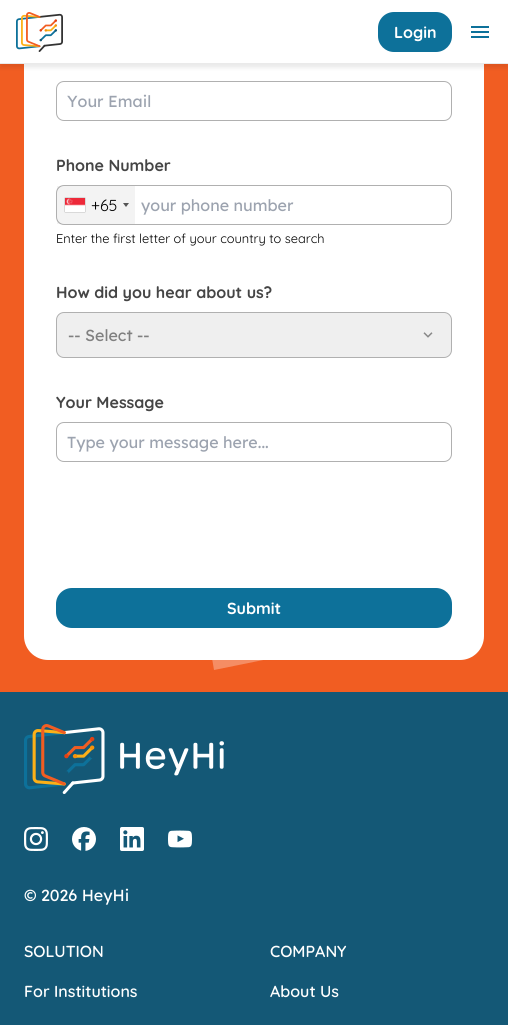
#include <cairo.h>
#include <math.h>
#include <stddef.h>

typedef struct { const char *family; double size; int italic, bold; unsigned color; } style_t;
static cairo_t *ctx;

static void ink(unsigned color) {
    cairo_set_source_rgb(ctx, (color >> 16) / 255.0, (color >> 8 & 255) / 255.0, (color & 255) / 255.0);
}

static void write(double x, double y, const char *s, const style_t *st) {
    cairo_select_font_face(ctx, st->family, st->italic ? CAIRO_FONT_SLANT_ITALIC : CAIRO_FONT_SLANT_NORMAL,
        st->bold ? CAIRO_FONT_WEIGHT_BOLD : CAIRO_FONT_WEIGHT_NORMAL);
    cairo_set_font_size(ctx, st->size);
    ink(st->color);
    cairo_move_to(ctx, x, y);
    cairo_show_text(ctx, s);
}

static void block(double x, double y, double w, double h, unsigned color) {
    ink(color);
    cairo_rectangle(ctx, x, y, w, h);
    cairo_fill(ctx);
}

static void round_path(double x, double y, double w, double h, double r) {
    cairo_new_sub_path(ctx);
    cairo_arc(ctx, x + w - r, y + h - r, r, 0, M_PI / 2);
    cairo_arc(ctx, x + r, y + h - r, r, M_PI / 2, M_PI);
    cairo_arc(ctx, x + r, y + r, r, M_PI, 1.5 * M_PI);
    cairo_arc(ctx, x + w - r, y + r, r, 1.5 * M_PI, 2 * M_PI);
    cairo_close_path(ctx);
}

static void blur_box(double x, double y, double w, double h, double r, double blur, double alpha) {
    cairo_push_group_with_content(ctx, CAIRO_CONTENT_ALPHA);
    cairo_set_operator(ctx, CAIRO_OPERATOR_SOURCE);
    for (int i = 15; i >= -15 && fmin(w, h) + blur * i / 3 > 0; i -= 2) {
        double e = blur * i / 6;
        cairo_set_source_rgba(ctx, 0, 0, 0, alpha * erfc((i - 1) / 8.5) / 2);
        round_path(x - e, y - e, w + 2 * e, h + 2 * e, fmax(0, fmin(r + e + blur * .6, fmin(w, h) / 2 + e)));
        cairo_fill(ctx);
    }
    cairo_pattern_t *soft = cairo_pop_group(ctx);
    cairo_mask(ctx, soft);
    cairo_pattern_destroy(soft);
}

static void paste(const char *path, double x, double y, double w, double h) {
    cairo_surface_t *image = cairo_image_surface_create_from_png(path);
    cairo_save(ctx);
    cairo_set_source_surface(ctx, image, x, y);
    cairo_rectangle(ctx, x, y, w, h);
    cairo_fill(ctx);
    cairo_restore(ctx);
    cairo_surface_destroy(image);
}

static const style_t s1 = {"Quicksand", 16, 0, 1, 0xffffff};
static const style_t s2 = {"Lexend Deca", 16, 0, 0, 0x9ca3af};
static const style_t s3 = {"Quicksand", 16, 0, 1, 0x454545};
static const style_t s4 = {"Quicksand", 16, 0, 0, 0x000000};
static const style_t s5 = {"Quicksand", 12.8, 0, 0, 0x000000};
static const style_t s6 = {"Lexend Deca", 16, 0, 0, 0x808080};
static const style_t s7 = {"Lexend Deca", 16, 0, 0, 0xffffff};
static const style_t s8 = {"Quicksand SemiBold", 16, 0, 0, 0xffffff};

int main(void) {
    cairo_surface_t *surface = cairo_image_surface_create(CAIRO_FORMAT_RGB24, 508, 1025);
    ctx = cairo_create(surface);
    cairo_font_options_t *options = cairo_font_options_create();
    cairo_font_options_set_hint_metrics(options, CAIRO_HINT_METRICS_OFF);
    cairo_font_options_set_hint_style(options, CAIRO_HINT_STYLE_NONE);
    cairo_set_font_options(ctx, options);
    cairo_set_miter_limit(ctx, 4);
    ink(0x145876);
    cairo_paint(ctx);
    block(0, 64, 508, 628, 0xf15d22);
    ink(0xffffff);
    round_path(24, -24, 460, 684, 24);
    cairo_fill(ctx);
    ink(0x000000);
    blur_box(0, 4, 508, 64, 0, 2, 0.08);
    block(0, 0, 508, 63, 0xffffff);
    block(0, 63, 508, 1, 0xeaeaea);
    paste("pic1.png", 16, 12, 47, 40);
    ink(0x0d719a);
    round_path(378, 12, 74, 40, 16);
    cairo_fill(ctx);
    write(394, 38, "Login", &s1);
    paste("pic2.png", 471, 26, 18, 12);
    round_path(56.5, 81.5, 395, 39, 7.5);
    ink(0xb0b0b0);
    cairo_set_line_width(ctx, 1);
    cairo_stroke(ctx);
    write(67, 107, "Your Email", &s2);
    write(56, 171, "Phone Number", &s3);
    round_path(56.5, 185.5, 395, 39, 7.5);
    ink(0xb0b0b0);
    cairo_stroke(ctx);
    cairo_set_source_rgba(ctx, 0, 0, 0, 0.05);
    cairo_rectangle(ctx, 57, 186, 78, 38);
    cairo_fill(ctx);
    ink(0x888888);
    blur_box(65, 198, 20, 14, 0, 0.5, 1);
    paste("pic3.png", 65, 198, 20, 14);
    write(91, 211, "+65", &s4);
    ink(0x555555);
    cairo_new_path(ctx);
    cairo_move_to(ctx, 123, 203);
    cairo_line_to(ctx, 129, 203);
    cairo_line_to(ctx, 126, 207);
    cairo_close_path(ctx);
    cairo_fill(ctx);
    write(141, 211, "your phone number", &s2);
    write(56, 243, "Enter the first letter of your country to search", &s5);
    write(56, 298, "How did you hear about us?", &s3);
    ink(0xefefef);
    round_path(56.5, 312.5, 395, 45, 7.5);
    cairo_fill_preserve(ctx);
    ink(0xb0b0b0);
    cairo_stroke(ctx);
    write(68, 341, "-- Select --", &s6);
    paste("pic4.png", 423, 332, 10, 6);
    write(56, 408, "Your Message", &s3);
    round_path(56.5, 422.5, 395, 39, 7.5);
    ink(0xb0b0b0);
    cairo_stroke(ctx);
    write(67, 448, "Type your message here...", &s2);
    cairo_set_source_rgba(ctx, 1, 1, 1, 0.3);
    cairo_new_path(ctx);
    cairo_move_to(ctx, 421, 629);
    cairo_line_to(ctx, 361, 641);
    cairo_line_to(ctx, 360, 634);
    cairo_curve_to(ctx, 355, 609, 331, 592, 307, 597);
    cairo_curve_to(ctx, 282, 602, 267, 627, 272, 652);
    cairo_line_to(ctx, 273, 658);
    cairo_line_to(ctx, 214, 670);
    cairo_line_to(ctx, 213, 664);
    cairo_curve_to(ctx, 201, 604, 237, 546, 294, 535);
    cairo_curve_to(ctx, 351, 523, 407, 563, 419, 622);
    cairo_close_path(ctx);
    cairo_fill(ctx);
    ink(0x0d719a);
    round_path(56, 588, 396, 40, 16);
    cairo_fill(ctx);
    write(227, 614, "Submit", &s1);
    paste("pic5.png", 24, 724, 200, 70);
    paste("pic6.png", 24, 827, 24, 24);
    paste("pic7.png", 72, 827, 24, 24);
    paste("pic8.png", 120, 827, 24, 24);
    paste("pic9.png", 168, 830, 24, 18);
    write(24, 901, "© 2026 HeyHi", &s7);
    write(24, 957, "SOLUTION", &s8);
    write(24, 997, "For Institutions", &s8);
    write(270, 957, "COMPANY", &s8);
    write(270, 997, "About Us", &s8);
    cairo_surface_write_to_png(surface, "screenshot.png");
    cairo_font_options_destroy(options);
    cairo_destroy(ctx);
    cairo_surface_destroy(surface);
    return 0;
}
